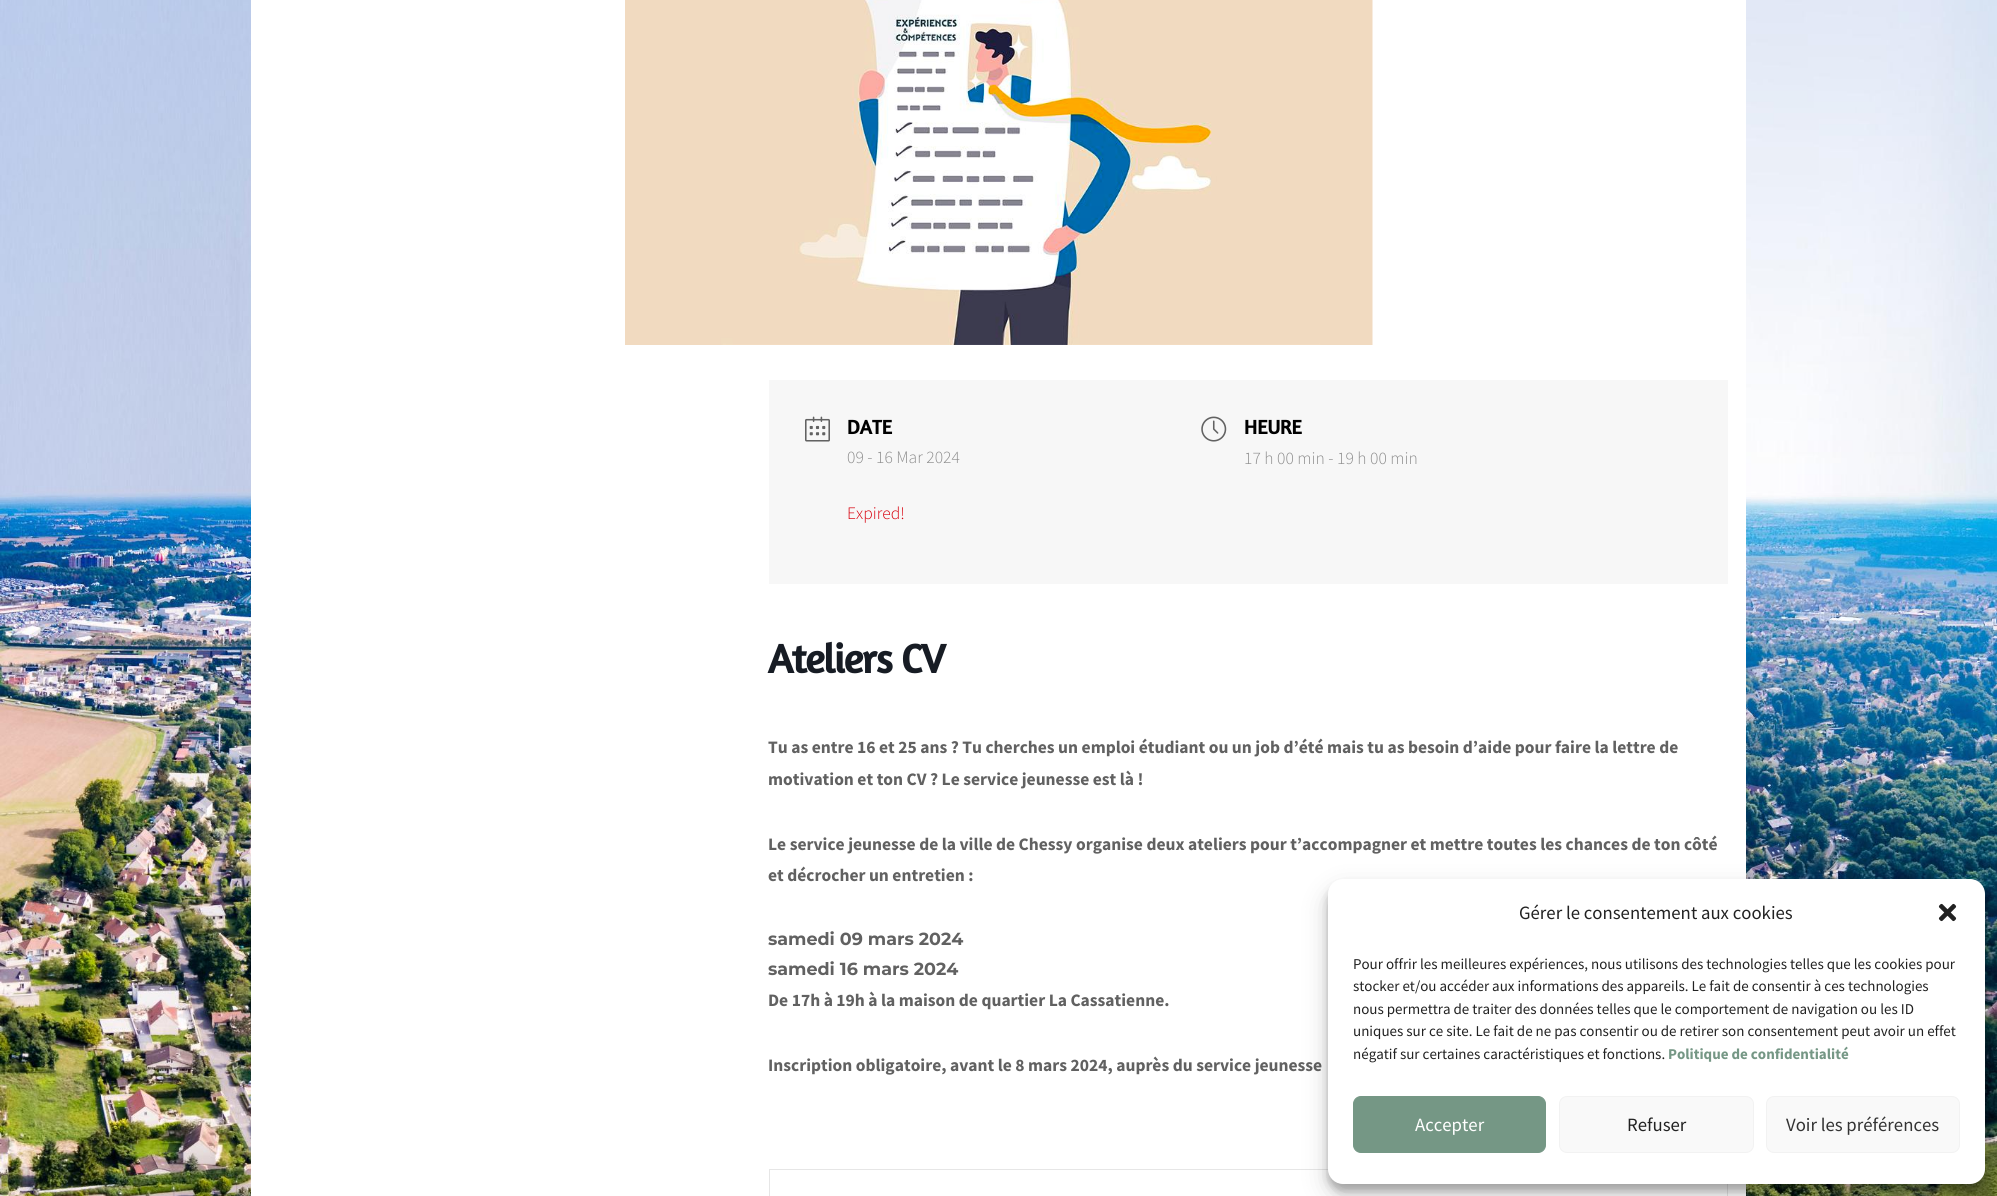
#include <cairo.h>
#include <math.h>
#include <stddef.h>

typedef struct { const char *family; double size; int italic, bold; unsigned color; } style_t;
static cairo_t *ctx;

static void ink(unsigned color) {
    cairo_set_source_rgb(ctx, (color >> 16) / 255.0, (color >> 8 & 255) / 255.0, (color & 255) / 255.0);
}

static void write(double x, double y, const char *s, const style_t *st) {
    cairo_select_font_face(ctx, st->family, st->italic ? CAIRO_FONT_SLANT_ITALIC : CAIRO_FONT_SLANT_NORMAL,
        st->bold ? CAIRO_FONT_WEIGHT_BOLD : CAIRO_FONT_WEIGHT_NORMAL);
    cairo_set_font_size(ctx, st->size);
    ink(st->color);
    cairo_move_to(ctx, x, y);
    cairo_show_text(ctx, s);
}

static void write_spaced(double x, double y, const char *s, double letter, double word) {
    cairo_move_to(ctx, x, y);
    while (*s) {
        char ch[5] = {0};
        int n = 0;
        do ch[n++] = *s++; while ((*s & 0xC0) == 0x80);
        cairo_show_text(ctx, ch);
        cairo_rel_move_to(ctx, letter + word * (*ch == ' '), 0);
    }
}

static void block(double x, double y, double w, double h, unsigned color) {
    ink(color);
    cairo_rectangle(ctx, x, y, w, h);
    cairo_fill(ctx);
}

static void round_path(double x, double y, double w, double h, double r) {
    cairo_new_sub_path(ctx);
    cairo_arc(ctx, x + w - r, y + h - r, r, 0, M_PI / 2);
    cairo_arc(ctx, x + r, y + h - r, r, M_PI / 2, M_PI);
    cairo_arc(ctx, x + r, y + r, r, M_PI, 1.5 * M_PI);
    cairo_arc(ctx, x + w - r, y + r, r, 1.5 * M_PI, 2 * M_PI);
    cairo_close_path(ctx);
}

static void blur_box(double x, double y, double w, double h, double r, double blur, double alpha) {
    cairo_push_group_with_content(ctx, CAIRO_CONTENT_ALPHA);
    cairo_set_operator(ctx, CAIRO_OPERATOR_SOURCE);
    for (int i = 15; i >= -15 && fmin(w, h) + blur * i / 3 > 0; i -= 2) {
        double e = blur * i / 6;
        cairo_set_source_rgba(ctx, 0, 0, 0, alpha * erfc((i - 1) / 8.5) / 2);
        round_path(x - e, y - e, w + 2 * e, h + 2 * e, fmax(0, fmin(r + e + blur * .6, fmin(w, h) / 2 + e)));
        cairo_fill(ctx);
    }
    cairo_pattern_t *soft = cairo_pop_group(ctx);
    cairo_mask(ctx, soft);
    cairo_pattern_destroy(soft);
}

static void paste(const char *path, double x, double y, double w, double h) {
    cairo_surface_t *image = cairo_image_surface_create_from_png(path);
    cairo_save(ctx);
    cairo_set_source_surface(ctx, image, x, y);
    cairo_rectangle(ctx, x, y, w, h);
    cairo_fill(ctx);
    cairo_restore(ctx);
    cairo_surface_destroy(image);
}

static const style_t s1 = {"Amaranth", 20, 0, 1, 0x000000};
static const style_t s2 = {"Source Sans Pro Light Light", 17.5, 0, 0, 0x8d8d8d};
static const style_t s3 = {"Source Sans Pro Light Light", 17.5, 0, 0, 0xd8000c};
static const style_t s4 = {"Source Sans Pro", 17.5, 0, 1, 0x616161};
static const style_t s5 = {"Montserrat", 17.5, 0, 1, 0x616161};
static const style_t s6 = {"Source Sans Pro", 18.75, 0, 0, 0x222222};
static const style_t s7 = {"Source Sans Pro", 15, 0, 0, 0x222222};
static const style_t s8 = {"Source Sans Pro", 15, 0, 1, 0x759785};
static const style_t s9 = {"Source Sans Pro", 18.75, 0, 0, 0xffffff};
static const style_t s10 = {"Source Sans Pro", 18.75, 0, 0, 0x333333};

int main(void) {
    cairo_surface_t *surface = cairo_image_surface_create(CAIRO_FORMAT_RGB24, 1997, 1196);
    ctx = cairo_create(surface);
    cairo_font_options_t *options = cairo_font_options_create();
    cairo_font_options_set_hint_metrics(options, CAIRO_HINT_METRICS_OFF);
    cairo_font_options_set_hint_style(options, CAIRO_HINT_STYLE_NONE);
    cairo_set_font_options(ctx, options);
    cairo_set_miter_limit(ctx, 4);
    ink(0xffffff);
    cairo_paint(ctx);
    paste("pic1.png", 0, 0, 1997, 1196);
    block(251, 0, 1495, 1196, 0xffffff);
    paste("pic2.png", 625, 0, 748, 345);
    block(769, 380, 959, 204, 0xf7f7f7);
    paste("pic3.png", 805, 416, 25, 26);
    write(847, 434, "DATE", &s1);
    write(847, 463, "09 - 16 Mar 2024", &s2);
    write(847, 519, "Expired!", &s3);
    paste("pic4.png", 1201, 416, 26, 26);
    write(1244, 434, "HEURE", &s1);
    write(1244, 464, "17 h 00 min - 19 h 00 min", &s2);
    cairo_select_font_face(ctx, "Amaranth", CAIRO_FONT_SLANT_NORMAL, CAIRO_FONT_WEIGHT_BOLD);
    cairo_set_font_size(ctx, 41.25);
    ink(0x171c24);
    write_spaced(768, 673, "Ateliers CV", -1.25, 0);
    write(768, 753, "Tu as entre 16 et 25 ans ? Tu cherches un emploi étudiant ou un job d’été mais tu as besoin d’aide pour faire la lettre de", &s4);
    write(768, 785, "motivation et ton CV ? Le service jeunesse est là !", &s4);
    write(768, 850, "Le service jeunesse de la ville de Chessy organise deux ateliers pour t’accompagner et mettre toutes les chances de ton côté", &s4);
    write(768, 881, "et décrocher un entretien :", &s4);
    write(768, 945, "samedi 09 mars 2024", &s5);
    write(768, 975, "samedi 16 mars 2024", &s5);
    write(768, 1006, "De 17h à 19h à la maison de quartier La Cassatienne.", &s4);
    write(768, 1071, "Inscription obligatoire, avant le 8 mars 2024, auprès du service jeunesse", &s4);
    cairo_rectangle(ctx, 769.5, 1169.5, 958, 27);
    ink(0xe6e6e6);
    cairo_set_line_width(ctx, 1);
    cairo_stroke(ctx);
    ink(0x000000);
    blur_box(1328, 886, 657, 305, 15, 4, 0.23);
    blur_box(1328, 891, 657, 305, 15, 12.5, 0.19);
    ink(0xffffff);
    round_path(1328, 879, 657, 305, 15);
    cairo_fill(ctx);
    write(1519, 919, "Gérer le consentement aux cookies", &s6);
    paste("pic5.png", 1938, 903, 19, 19);
    write(1353, 969, "Pour offrir les meilleures expériences, nous utilisons des technologies telles que les cookies pour", &s7);
    write(1353, 991, "stocker et/ou accéder aux informations des appareils. Le fait de consentir à ces technologies", &s7);
    write(1353, 1014, "nous permettra de traiter des données telles que le comportement de navigation ou les ID", &s7);
    write(1353, 1036, "uniques sur ce site. Le fait de ne pas consentir ou de retirer son consentement peut avoir un effet", &s7);
    write(1353, 1059, "négatif sur certaines caractéristiques et fonctions.", &s7);
    write(1668, 1059, "Politique de confidentialité", &s8);
    round_path(1353.5, 1096.5, 192, 56, 7.5);
    cairo_fill_preserve(ctx);
    cairo_stroke(ctx);
    write(1415, 1131, "Accepter", &s9);
    ink(0xf9f9f9);
    round_path(1559.5, 1096.5, 194, 56, 7.5);
    cairo_fill_preserve(ctx);
    ink(0xf2f2f2);
    cairo_stroke(ctx);
    write(1627, 1131, "Refuser", &s6);
    ink(0xf9f9f9);
    round_path(1766.5, 1096.5, 193, 56, 7.5);
    cairo_fill_preserve(ctx);
    ink(0xf2f2f2);
    cairo_stroke(ctx);
    write(1786, 1131, "Voir les préférences", &s10);
    cairo_surface_write_to_png(surface, "screenshot.png");
    cairo_font_options_destroy(options);
    cairo_destroy(ctx);
    cairo_surface_destroy(surface);
    return 0;
}
